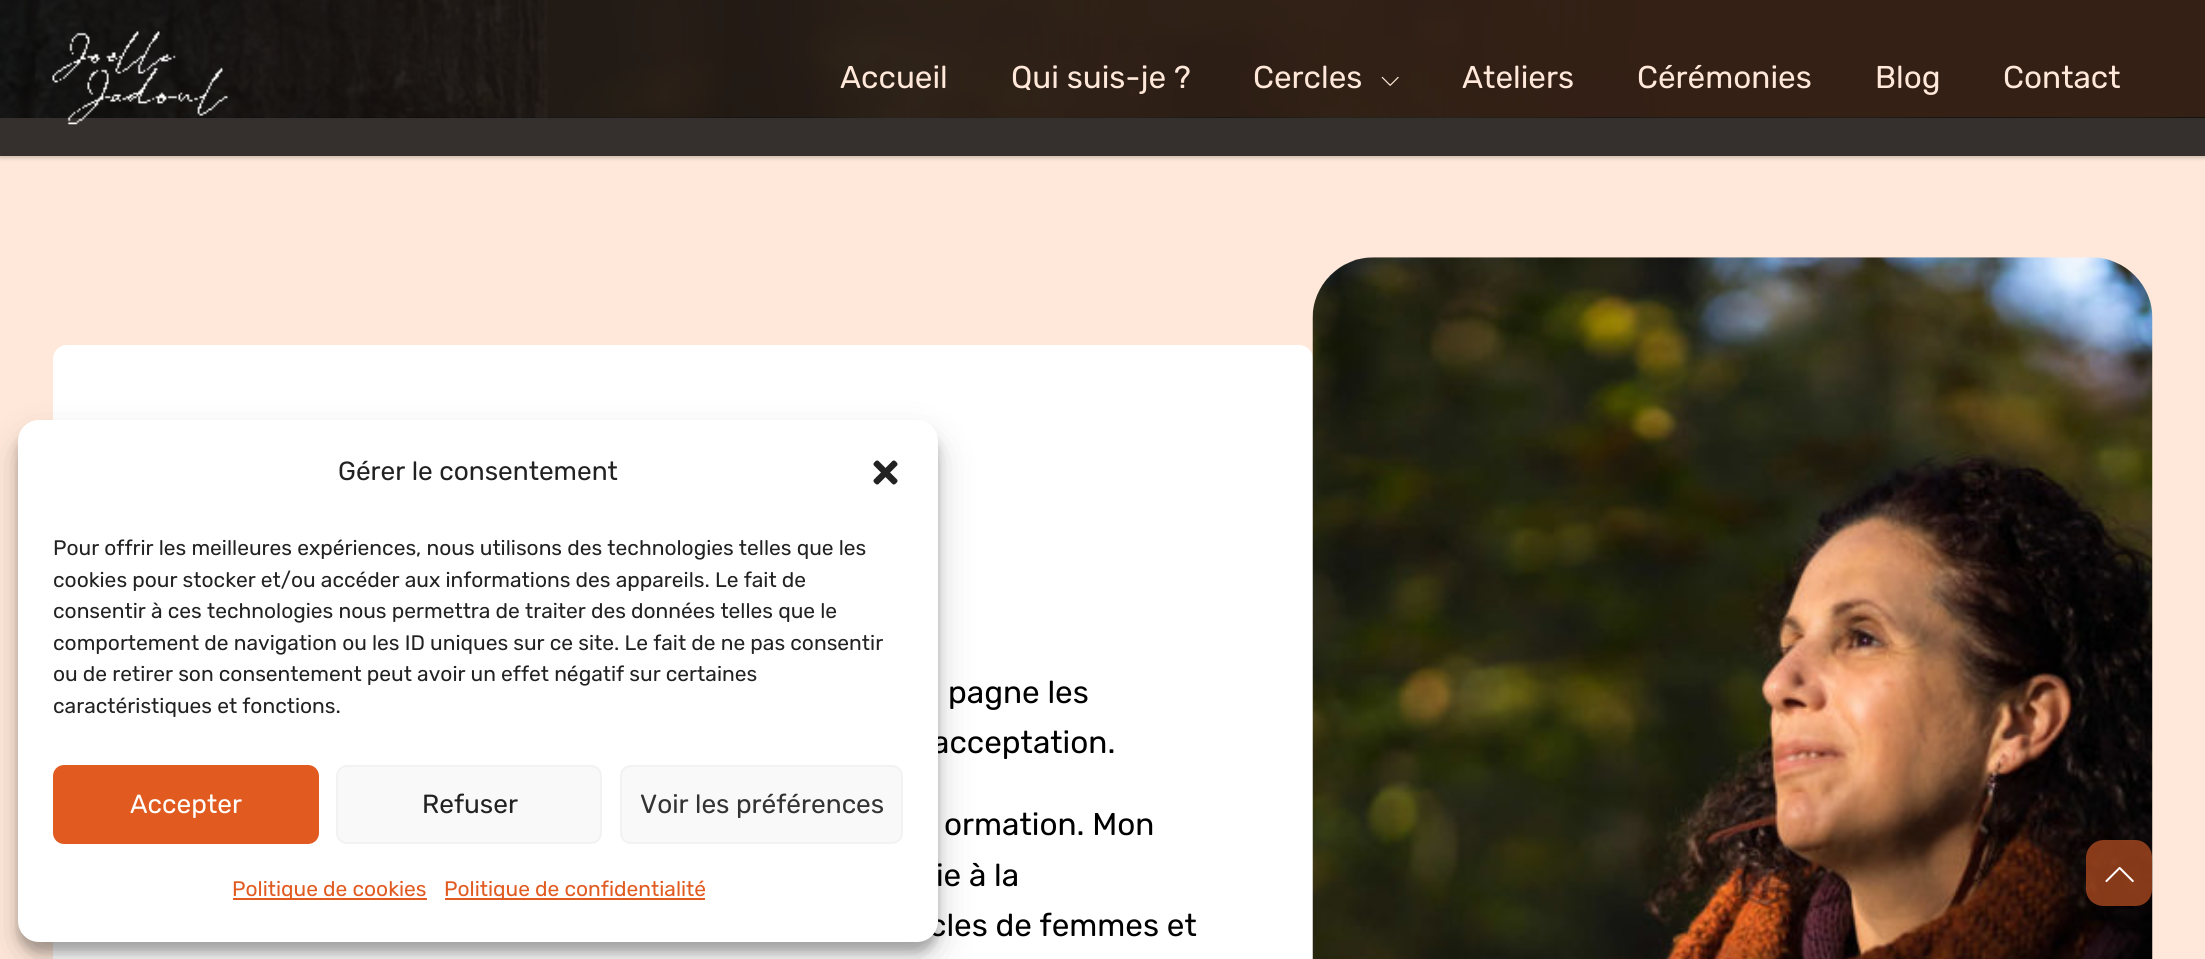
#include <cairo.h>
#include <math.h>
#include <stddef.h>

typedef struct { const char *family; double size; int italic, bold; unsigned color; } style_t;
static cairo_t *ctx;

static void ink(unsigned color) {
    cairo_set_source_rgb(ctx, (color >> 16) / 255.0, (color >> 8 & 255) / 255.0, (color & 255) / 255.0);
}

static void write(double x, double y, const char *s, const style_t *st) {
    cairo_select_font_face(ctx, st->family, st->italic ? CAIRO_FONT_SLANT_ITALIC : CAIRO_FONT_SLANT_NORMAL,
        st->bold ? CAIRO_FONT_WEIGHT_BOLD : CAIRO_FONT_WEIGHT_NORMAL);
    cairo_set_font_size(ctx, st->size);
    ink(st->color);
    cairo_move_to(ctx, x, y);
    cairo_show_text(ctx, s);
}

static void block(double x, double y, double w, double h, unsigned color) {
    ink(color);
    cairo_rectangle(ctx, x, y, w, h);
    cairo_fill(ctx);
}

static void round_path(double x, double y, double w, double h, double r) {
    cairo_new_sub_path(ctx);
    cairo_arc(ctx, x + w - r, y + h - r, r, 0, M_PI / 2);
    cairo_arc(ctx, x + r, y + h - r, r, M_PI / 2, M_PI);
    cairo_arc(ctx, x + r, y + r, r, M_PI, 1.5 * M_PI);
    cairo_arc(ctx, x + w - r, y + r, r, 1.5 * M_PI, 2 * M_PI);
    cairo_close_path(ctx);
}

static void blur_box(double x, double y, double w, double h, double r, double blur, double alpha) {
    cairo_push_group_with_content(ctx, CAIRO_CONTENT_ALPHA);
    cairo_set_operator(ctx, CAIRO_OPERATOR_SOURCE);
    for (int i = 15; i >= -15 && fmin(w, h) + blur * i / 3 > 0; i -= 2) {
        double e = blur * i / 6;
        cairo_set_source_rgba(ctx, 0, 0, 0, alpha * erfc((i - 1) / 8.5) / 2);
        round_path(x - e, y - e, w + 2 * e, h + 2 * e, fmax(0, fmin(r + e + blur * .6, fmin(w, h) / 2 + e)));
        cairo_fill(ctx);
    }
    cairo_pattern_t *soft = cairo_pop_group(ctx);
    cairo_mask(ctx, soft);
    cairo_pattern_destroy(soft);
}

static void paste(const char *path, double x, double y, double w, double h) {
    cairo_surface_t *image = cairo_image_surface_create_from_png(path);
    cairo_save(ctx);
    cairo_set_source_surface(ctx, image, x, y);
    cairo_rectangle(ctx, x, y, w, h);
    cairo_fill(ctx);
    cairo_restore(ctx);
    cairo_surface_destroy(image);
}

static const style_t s1 = {"Rubik Light", 31.5, 0, 0, 0x000000};
static const style_t s2 = {"Rubik Light", 26.25, 0, 0, 0x222222};
static const style_t s3 = {"Rubik Light", 21, 0, 0, 0x222222};
static const style_t s4 = {"Rubik Light", 26.25, 0, 0, 0xffffff};
static const style_t s5 = {"Rubik Light", 26.25, 0, 0, 0x333333};
static const style_t s6 = {"Rubik Light", 21, 0, 0, 0xe15a20};
static const style_t s7 = {"Rubik Light", 31.5, 0, 0, 0xffe8d9};

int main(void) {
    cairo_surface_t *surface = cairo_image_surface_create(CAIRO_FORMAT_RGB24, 2205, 959);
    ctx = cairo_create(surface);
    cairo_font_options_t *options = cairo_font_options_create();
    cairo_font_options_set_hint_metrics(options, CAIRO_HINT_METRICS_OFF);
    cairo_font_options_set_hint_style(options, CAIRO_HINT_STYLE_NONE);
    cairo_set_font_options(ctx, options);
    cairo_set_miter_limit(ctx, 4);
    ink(0xffe8d9);
    cairo_paint(ctx);
    ink(0xffffff);
    round_path(53, 345, 1260, 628, 14);
    cairo_fill(ctx);
    ink(0x000000);
    blur_box(18, 431, 920, 521, 21, 5, 0.23);
    blur_box(18, 438, 920, 521, 21, 17.5, 0.19);
    write(932, 753, "acceptation.", &s1);
    write(936, 886, "ie à la", &s1);
    write(929, 936, "cles de femmes et", &s1);
    ink(0xffffff);
    round_path(18, 420, 920, 522, 21);
    cairo_fill(ctx);
    write(338, 480, "Gérer le consentement", &s2);
    paste("pic1.png", 873, 460, 25, 25);
    write(53, 555, "Pour offrir les meilleures expériences, nous utilisons des technologies telles que les", &s3);
    write(53, 587, "cookies pour stocker et/ou accéder aux informations des appareils. Le fait de", &s3);
    write(53, 618, "consentir à ces technologies nous permettra de traiter des données telles que le", &s3);
    write(53, 650, "comportement de navigation ou les ID uniques sur ce site. Le fait de ne pas consentir", &s3);
    write(53, 681, "ou de retirer son consentement peut avoir un effet négatif sur certaines", &s3);
    write(53, 713, "caractéristiques et fonctions.", &s3);
    ink(0xe15a20);
    round_path(54, 766, 264, 77, 10);
    cairo_fill_preserve(ctx);
    cairo_stroke(ctx);
    write(130, 813, "Accepter", &s4);
    ink(0xf9f9f9);
    round_path(337, 766, 264, 77, 10);
    cairo_fill_preserve(ctx);
    ink(0xf2f2f2);
    cairo_stroke(ctx);
    write(422, 813, "Refuser", &s2);
    ink(0xf9f9f9);
    round_path(621, 766, 281, 77, 10);
    cairo_fill_preserve(ctx);
    ink(0xf2f2f2);
    cairo_stroke(ctx);
    write(640, 813, "Voir les préférences", &s5);
    block(233, 898, 194, 2, 0xe15a20);
    write(232, 896, "Politique de cookies", &s6);
    block(445, 898, 260, 2, 0xe15a20);
    write(444, 896, "Politique de confidentialité", &s6);
    paste("pic4.png", 0, 0, 2205, 118);
    cairo_save(ctx);
    cairo_set_fill_rule(ctx, CAIRO_FILL_RULE_EVEN_ODD);
    cairo_new_path(ctx);
    cairo_move_to(ctx, 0, 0);
    cairo_line_to(ctx, 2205, 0);
    cairo_line_to(ctx, 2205, 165);
    cairo_line_to(ctx, 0, 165);
    cairo_close_path(ctx);
    cairo_move_to(ctx, 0, 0);
    cairo_line_to(ctx, 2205, 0);
    cairo_line_to(ctx, 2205, 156);
    cairo_line_to(ctx, 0, 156);
    cairo_close_path(ctx);
    cairo_clip(ctx);
    ink(0x000000);
    blur_box(0, 2, 2205, 156, 0, 2, 0.2);
    cairo_restore(ctx);
    cairo_set_source_rgba(ctx, 0, 0, 0, 0.79);
    cairo_rectangle(ctx, 0, 0, 2205, 156);
    cairo_fill(ctx);
    paste("pic2.png", 52, 31, 176, 94);
    write(840, 88, "Accueil", &s7);
    write(1011, 88, "Qui suis-je ?", &s7);
    write(1253, 88, "Cercles", &s7);
    paste("pic3.png", 1381, 76, 18, 10);
    write(1462, 88, "Ateliers", &s7);
    write(1637, 88, "Cérémonies", &s7);
    write(1875, 88, "Blog", &s7);
    write(2003, 88, "Contact", &s7);
    write(948, 703, "pagne les", &s1);
    write(944, 835, "ormation. Mon", &s1);
    paste("pic5.png", 1312, 257, 841, 702);
    cairo_set_source_rgba(ctx, 0.678, 0.29, 0.122, 0.77);
    cairo_new_path(ctx);
    cairo_move_to(ctx, 2135, 906);
    cairo_line_to(ctx, 2104, 906);
    cairo_curve_to(ctx, 2094, 906, 2086, 899, 2086, 889);
    cairo_line_to(ctx, 2086, 858);
    cairo_curve_to(ctx, 2086, 848, 2094, 840, 2104, 840);
    cairo_line_to(ctx, 2135, 840);
    cairo_curve_to(ctx, 2145, 840, 2152, 848, 2152, 858);
    cairo_line_to(ctx, 2152, 889);
    cairo_curve_to(ctx, 2152, 899, 2145, 906, 2135, 906);
    cairo_close_path(ctx);
    cairo_fill(ctx);
    paste("pic6.png", 2105, 866, 29, 17);
    cairo_surface_write_to_png(surface, "screenshot.png");
    cairo_font_options_destroy(options);
    cairo_destroy(ctx);
    cairo_surface_destroy(surface);
    return 0;
}
